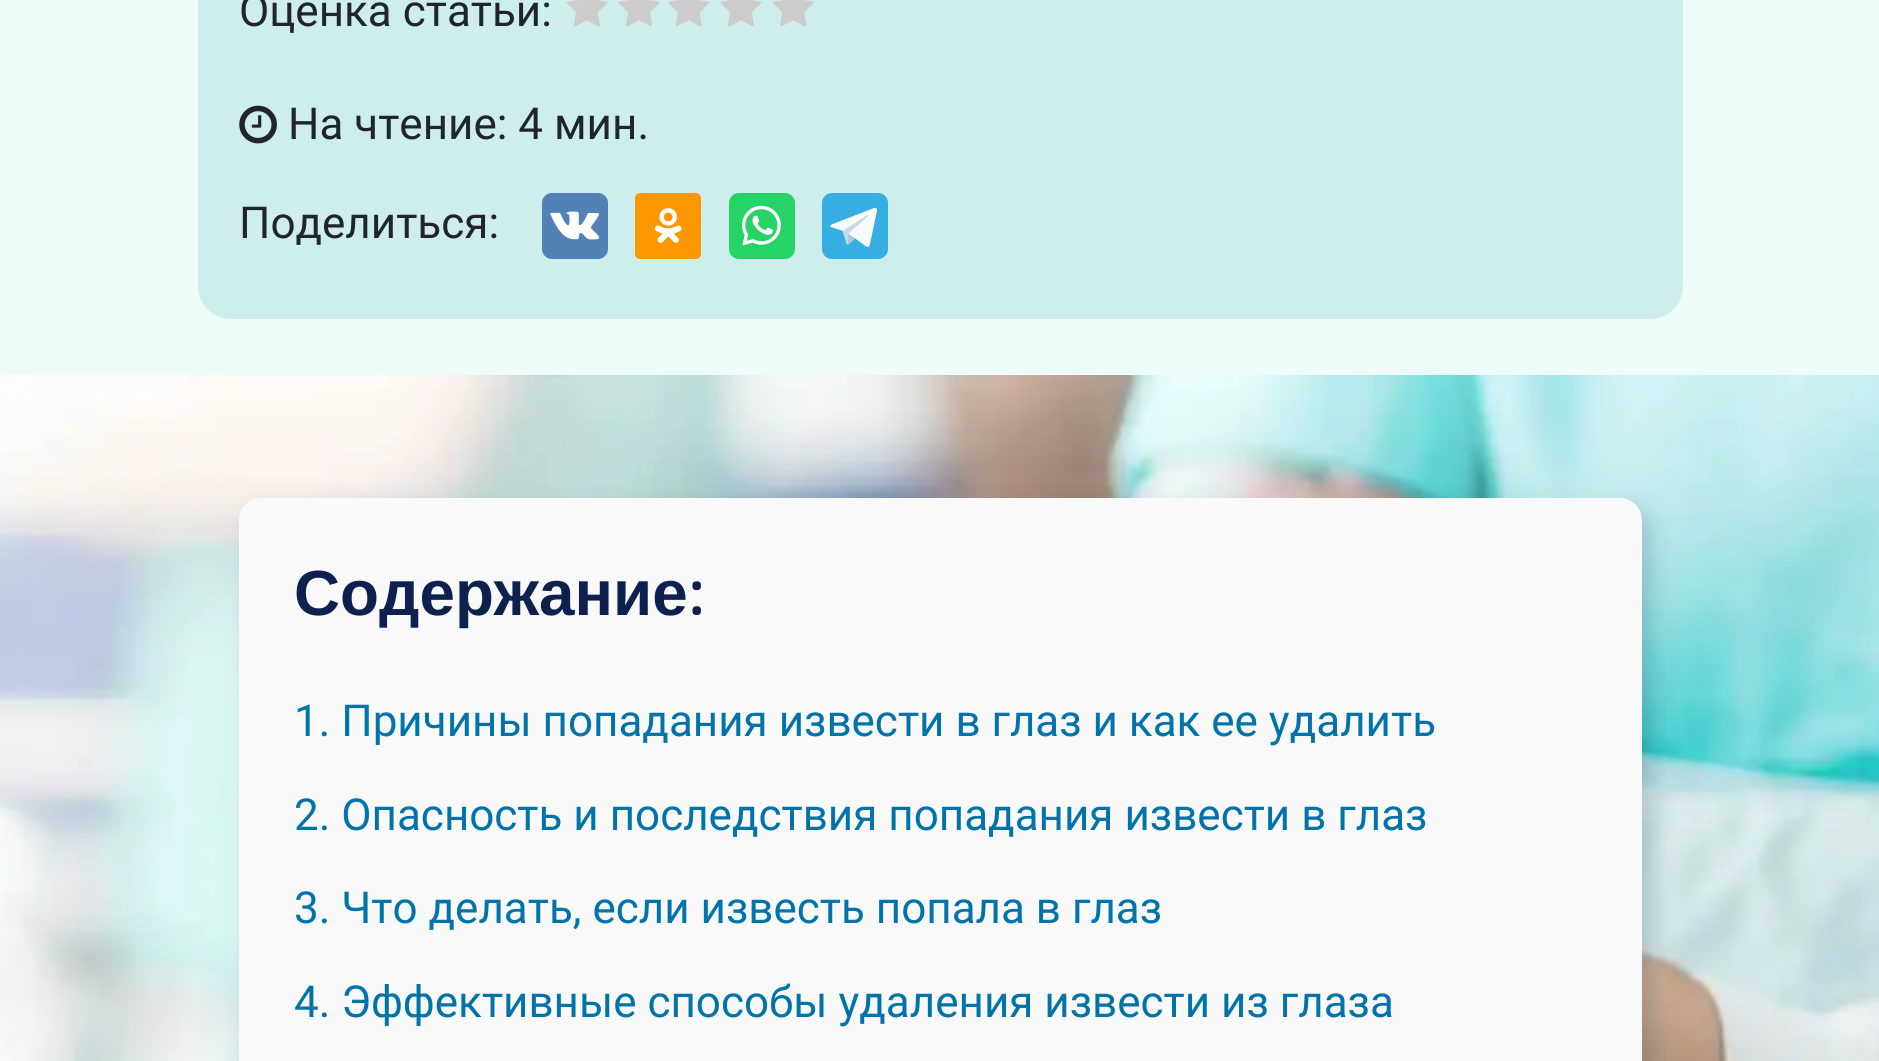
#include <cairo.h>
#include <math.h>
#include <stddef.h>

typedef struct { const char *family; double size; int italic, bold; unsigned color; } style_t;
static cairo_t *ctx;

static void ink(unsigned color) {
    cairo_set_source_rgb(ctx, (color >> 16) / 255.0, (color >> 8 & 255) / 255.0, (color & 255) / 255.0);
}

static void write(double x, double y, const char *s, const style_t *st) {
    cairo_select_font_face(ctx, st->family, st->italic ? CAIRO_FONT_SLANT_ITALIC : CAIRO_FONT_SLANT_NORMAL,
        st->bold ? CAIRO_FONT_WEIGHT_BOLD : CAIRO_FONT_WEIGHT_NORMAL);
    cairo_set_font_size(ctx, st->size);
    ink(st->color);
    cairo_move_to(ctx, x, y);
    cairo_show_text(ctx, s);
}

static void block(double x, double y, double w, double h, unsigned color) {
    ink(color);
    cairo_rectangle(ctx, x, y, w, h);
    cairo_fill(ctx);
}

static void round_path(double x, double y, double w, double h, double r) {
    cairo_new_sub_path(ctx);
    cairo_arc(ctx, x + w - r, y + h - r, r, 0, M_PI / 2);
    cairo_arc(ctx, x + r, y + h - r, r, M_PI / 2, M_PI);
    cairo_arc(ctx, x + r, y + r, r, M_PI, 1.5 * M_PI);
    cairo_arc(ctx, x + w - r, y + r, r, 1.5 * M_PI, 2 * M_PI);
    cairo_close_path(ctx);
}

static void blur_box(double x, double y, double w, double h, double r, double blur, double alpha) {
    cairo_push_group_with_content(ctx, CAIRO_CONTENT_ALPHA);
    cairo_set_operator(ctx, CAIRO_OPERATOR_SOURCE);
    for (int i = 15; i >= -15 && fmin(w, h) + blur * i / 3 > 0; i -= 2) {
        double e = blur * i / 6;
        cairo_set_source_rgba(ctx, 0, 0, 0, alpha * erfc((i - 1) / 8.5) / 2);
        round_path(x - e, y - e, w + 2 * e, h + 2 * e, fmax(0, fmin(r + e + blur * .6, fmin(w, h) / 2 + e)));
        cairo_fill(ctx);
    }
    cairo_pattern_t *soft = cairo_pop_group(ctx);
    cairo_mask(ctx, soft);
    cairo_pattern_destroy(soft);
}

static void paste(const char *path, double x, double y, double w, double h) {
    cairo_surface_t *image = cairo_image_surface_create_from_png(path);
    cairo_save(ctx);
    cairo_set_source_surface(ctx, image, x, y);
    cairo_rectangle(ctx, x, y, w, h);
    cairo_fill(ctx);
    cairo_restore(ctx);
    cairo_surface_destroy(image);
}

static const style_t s1 = {"Roboto", 44, 0, 0, 0x212529};
static const style_t s2 = {"Liberation Sans", 63.75, 0, 1, 0x0e204d};
static const style_t s3 = {"Quicksand", 63.75, 0, 1, 0x0e204d};
static const style_t s4 = {"Roboto", 44, 0, 0, 0x0073aa};

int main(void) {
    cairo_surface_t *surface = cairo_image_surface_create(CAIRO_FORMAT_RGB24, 1879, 1061);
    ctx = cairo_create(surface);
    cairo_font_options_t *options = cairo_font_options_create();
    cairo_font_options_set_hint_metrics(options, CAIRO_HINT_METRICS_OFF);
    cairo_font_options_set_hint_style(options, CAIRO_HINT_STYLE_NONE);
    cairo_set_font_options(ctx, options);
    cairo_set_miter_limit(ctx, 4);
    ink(0xffffff);
    cairo_paint(ctx);
    block(0, 0, 1879, 375, 0xedfbf9);
    ink(0xcdeeec);
    round_path(198, -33, 1485, 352, 33);
    cairo_fill(ctx);
    write(239, 26, "Оценка статьи:", &s1);
    paste("pic1.png", 566, 0, 42, 27);
    paste("pic2.png", 618, 0, 42, 27);
    paste("pic3.png", 668, 0, 41, 27);
    paste("pic1.png", 720, 0, 42, 27);
    paste("pic2.png", 772, 0, 42, 27);
    paste("pic4.png", 239, 105, 38, 39);
    write(288, 139, "На чтение: 4 мин.", &s1);
    write(239, 238, "Поделиться:", &s1);
    paste("pic5.png", 542, 193, 66, 66);
    paste("pic6.png", 635, 193, 66, 66);
    paste("pic7.png", 729, 193, 66, 66);
    paste("pic8.png", 822, 193, 66, 66);
    paste("pic9.png", 0, 375, 1879, 686);
    ink(0x223c50);
    blur_box(250, 509, 1403, 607, 22, 11, 0.2);
    ink(0xf9f9f9);
    round_path(239, 498, 1403, 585, 22);
    cairo_fill(ctx);
    write(294, 615, "Содержание", &s2);
    write(688, 615, ":", &s3);
    write(294, 736, "1. Причины попадания извести в глаз и как ее удалить", &s4);
    write(294, 830, "2. Опасность и последствия попадания извести в глаз", &s4);
    write(294, 923, "3. Что делать, если известь попала в глаз", &s4);
    write(294, 1017, "4. Эффективные способы удаления извести из глаза", &s4);
    cairo_surface_write_to_png(surface, "screenshot.png");
    cairo_font_options_destroy(options);
    cairo_destroy(ctx);
    cairo_surface_destroy(surface);
    return 0;
}
